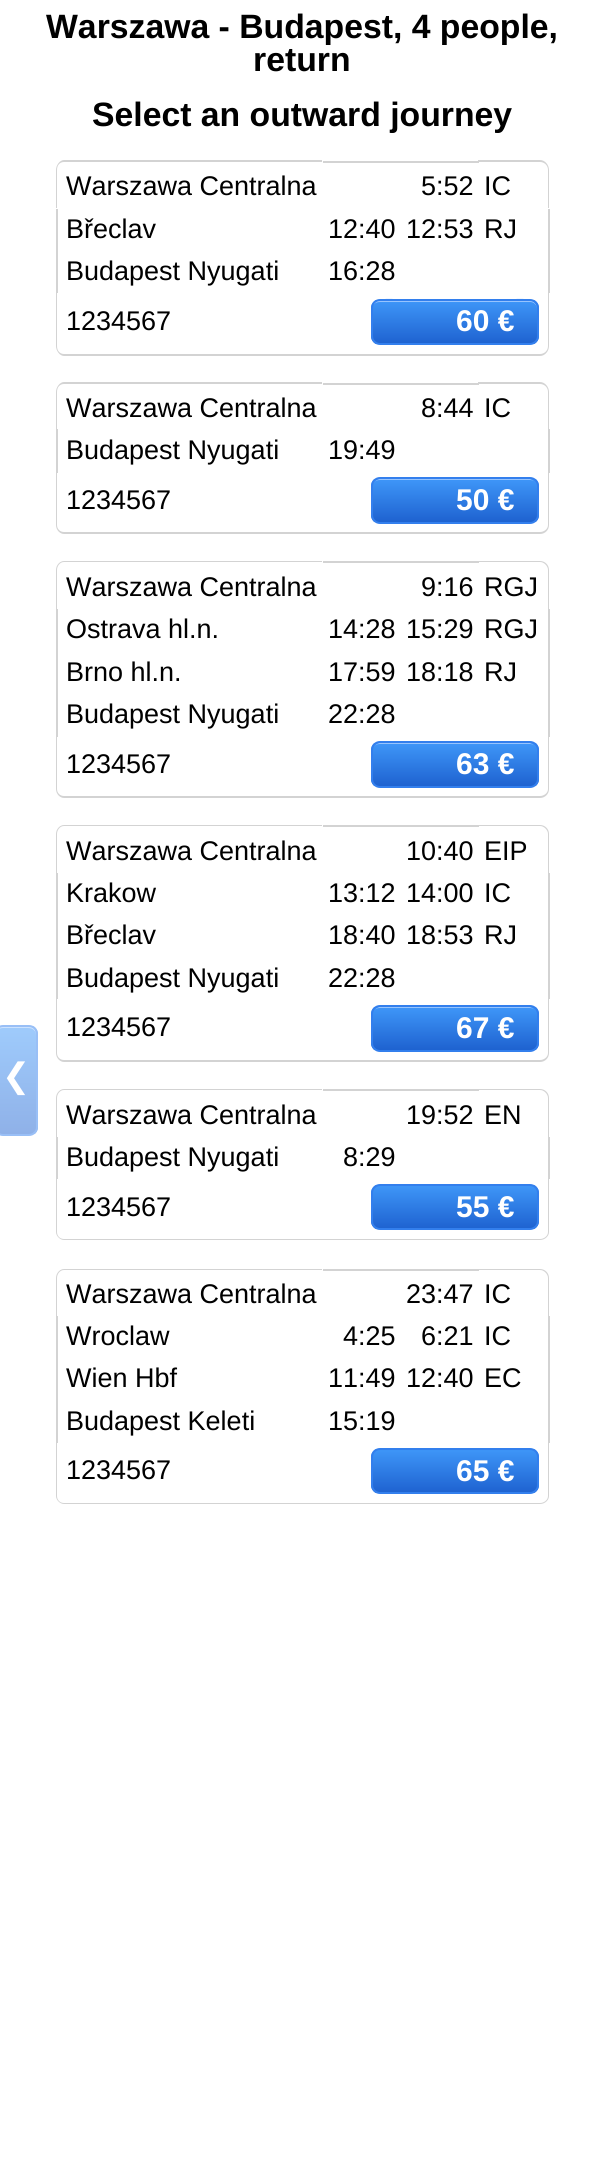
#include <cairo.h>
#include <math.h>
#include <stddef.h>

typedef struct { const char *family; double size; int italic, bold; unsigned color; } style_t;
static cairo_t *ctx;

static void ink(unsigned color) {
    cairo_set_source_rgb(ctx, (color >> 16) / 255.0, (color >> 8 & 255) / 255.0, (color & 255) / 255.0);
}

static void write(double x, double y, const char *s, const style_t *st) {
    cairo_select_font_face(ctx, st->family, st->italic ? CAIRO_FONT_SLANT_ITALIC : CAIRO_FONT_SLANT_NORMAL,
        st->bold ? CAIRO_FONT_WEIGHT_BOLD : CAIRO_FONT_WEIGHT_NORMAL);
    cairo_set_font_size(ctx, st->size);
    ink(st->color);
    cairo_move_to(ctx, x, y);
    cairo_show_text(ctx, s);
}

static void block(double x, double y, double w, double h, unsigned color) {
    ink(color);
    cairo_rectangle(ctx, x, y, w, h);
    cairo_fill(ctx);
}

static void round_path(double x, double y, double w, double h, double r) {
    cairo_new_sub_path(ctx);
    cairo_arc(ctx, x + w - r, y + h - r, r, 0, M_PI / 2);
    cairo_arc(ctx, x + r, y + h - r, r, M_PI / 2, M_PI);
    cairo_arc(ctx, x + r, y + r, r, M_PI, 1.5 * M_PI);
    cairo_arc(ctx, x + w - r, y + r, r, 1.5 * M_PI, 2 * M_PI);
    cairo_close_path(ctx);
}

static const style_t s1 = {"Liberation Sans", 33.75, 0, 1, 0x000000};
static const style_t s2 = {"DejaVu Sans", 33.75, 0, 0, 0xffffff};
static const style_t s3 = {"Liberation Sans", 27, 0, 0, 0x000000};
static const style_t s4 = {"Liberation Sans", 30, 0, 1, 0xffffff};

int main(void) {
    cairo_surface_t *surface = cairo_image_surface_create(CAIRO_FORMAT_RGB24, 604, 2168);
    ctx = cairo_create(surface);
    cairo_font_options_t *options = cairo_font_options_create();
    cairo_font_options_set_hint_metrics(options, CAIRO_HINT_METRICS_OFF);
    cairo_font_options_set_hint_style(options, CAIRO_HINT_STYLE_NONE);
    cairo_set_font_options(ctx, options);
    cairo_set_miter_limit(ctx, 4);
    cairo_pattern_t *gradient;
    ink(0xffffff);
    cairo_paint(ctx);
    write(46, 38, "Warszawa - Budapest, 4 people,", &s1);
    write(253, 71, "return", &s1);
    cairo_save(ctx);
    round_path(-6, 1025, 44, 111, 9);
    cairo_clip(ctx);
    gradient = cairo_pattern_create_linear(16, 1026, 16, 1134);
    cairo_pattern_add_color_stop_rgba(gradient, 0.05, 0.62, 0.792, 0.984, 1);
    cairo_pattern_add_color_stop_rgba(gradient, 1, 0.561, 0.694, 0.91, 1);
    cairo_set_source(ctx, gradient);
    cairo_pattern_destroy(gradient);
    cairo_rectangle(ctx, 0, 1026, 38, 108);
    cairo_fill(ctx);
    cairo_restore(ctx);
    ink(0xcbe2ff);
    cairo_new_path(ctx);
    cairo_move_to(ctx, 3, 1028);
    cairo_line_to(ctx, 28, 1028);
    cairo_curve_to(ctx, 33, 1028, 36, 1031, 36, 1035);
    cairo_curve_to(ctx, 36, 1023, 24, 1026, 16, 1026);
    cairo_curve_to(ctx, 8, 1026, -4, 1023, -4, 1035);
    cairo_curve_to(ctx, -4, 1031, -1, 1028, 3, 1028);
    cairo_close_path(ctx);
    cairo_fill(ctx);
    round_path(-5, 1026, 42, 109, 8);
    ink(0x99bff6);
    cairo_stroke(ctx);
    write(2, 1087, "❮", &s2);
    write(92, 126, "Select an outward journey", &s1);
    block(323, 161, 156, 2, 0xd3d3d3);
    cairo_set_fill_rule(ctx, CAIRO_FILL_RULE_EVEN_ODD);
    cairo_new_path(ctx);
    cairo_move_to(ctx, 64, 160);
    cairo_line_to(ctx, 322, 160);
    cairo_line_to(ctx, 322, 208);
    cairo_line_to(ctx, 56, 208);
    cairo_line_to(ctx, 56, 170);
    cairo_curve_to(ctx, 56, 165, 60, 160, 64, 160);
    cairo_close_path(ctx);
    cairo_move_to(ctx, 64, 162);
    cairo_line_to(ctx, 322, 162);
    cairo_line_to(ctx, 322, 208);
    cairo_line_to(ctx, 57, 208);
    cairo_line_to(ctx, 57, 170);
    cairo_curve_to(ctx, 57, 165, 60, 162, 64, 162);
    cairo_close_path(ctx);
    cairo_fill(ctx);
    write(66, 195, "Warszawa Centralna", &s3);
    write(421, 195, "5:52", &s3);
    ink(0xd3d3d3);
    cairo_new_path(ctx);
    cairo_move_to(ctx, 478, 160);
    cairo_line_to(ctx, 540, 160);
    cairo_curve_to(ctx, 545, 160, 549, 165, 549, 170);
    cairo_line_to(ctx, 549, 208);
    cairo_line_to(ctx, 478, 208);
    cairo_close_path(ctx);
    cairo_move_to(ctx, 478, 162);
    cairo_line_to(ctx, 540, 162);
    cairo_curve_to(ctx, 544, 162, 548, 165, 548, 170);
    cairo_line_to(ctx, 548, 208);
    cairo_line_to(ctx, 478, 208);
    cairo_close_path(ctx);
    cairo_fill(ctx);
    write(484, 195, "IC", &s3);
    block(56, 209, 2, 84, 0xd3d3d3);
    write(66, 238, "Břeclav", &s3);
    write(328, 238, "12:40", &s3);
    write(406, 238, "12:53", &s3);
    block(548, 209, 2, 84, 0xd3d3d3);
    write(484, 238, "RJ", &s3);
    write(66, 280, "Budapest Nyugati", &s3);
    write(328, 280, "16:28", &s3);
    ink(0xd3d3d3);
    cairo_new_path(ctx);
    cairo_move_to(ctx, 56, 292);
    cairo_line_to(ctx, 322, 292);
    cairo_line_to(ctx, 322, 356);
    cairo_line_to(ctx, 64, 356);
    cairo_curve_to(ctx, 60, 356, 56, 351, 56, 346);
    cairo_close_path(ctx);
    cairo_move_to(ctx, 57, 292);
    cairo_line_to(ctx, 322, 292);
    cairo_line_to(ctx, 322, 354);
    cairo_line_to(ctx, 64, 354);
    cairo_curve_to(ctx, 60, 354, 57, 351, 57, 346);
    cairo_close_path(ctx);
    cairo_fill(ctx);
    write(66, 330, "1234567", &s3);
    ink(0xd3d3d3);
    cairo_new_path(ctx);
    cairo_move_to(ctx, 322, 292);
    cairo_line_to(ctx, 549, 292);
    cairo_line_to(ctx, 549, 346);
    cairo_curve_to(ctx, 549, 351, 545, 356, 540, 356);
    cairo_line_to(ctx, 322, 356);
    cairo_close_path(ctx);
    cairo_move_to(ctx, 322, 292);
    cairo_line_to(ctx, 548, 292);
    cairo_line_to(ctx, 548, 346);
    cairo_curve_to(ctx, 548, 351, 544, 354, 540, 354);
    cairo_line_to(ctx, 322, 354);
    cairo_close_path(ctx);
    cairo_fill(ctx);
    cairo_save(ctx);
    cairo_set_fill_rule(ctx, CAIRO_FILL_RULE_WINDING);
    round_path(371, 299, 168, 46, 9);
    cairo_clip(ctx);
    gradient = cairo_pattern_create_linear(455, 300, 455, 344);
    cairo_pattern_add_color_stop_rgba(gradient, 0.05, 0.239, 0.58, 0.965, 1);
    cairo_pattern_add_color_stop_rgba(gradient, 1, 0.118, 0.384, 0.816, 1);
    cairo_set_source(ctx, gradient);
    cairo_pattern_destroy(gradient);
    cairo_rectangle(ctx, 371, 300, 168, 44);
    cairo_fill(ctx);
    cairo_restore(ctx);
    ink(0x97c4fe);
    cairo_set_fill_rule(ctx, CAIRO_FILL_RULE_WINDING);
    cairo_new_path(ctx);
    cairo_move_to(ctx, 380, 302);
    cairo_line_to(ctx, 530, 302);
    cairo_curve_to(ctx, 534, 302, 537, 305, 537, 309);
    cairo_curve_to(ctx, 537, 294, 510, 300, 504, 300);
    cairo_line_to(ctx, 405, 300);
    cairo_curve_to(ctx, 399, 300, 372, 294, 372, 309);
    cairo_curve_to(ctx, 372, 305, 375, 302, 380, 302);
    cairo_close_path(ctx);
    cairo_fill(ctx);
    round_path(372, 300, 166, 44, 8);
    ink(0x337fed);
    cairo_stroke(ctx);
    write(456, 331, "60 €", &s4);
    block(323, 383, 156, 2, 0xd3d3d3);
    cairo_set_fill_rule(ctx, CAIRO_FILL_RULE_EVEN_ODD);
    cairo_new_path(ctx);
    cairo_move_to(ctx, 64, 382);
    cairo_line_to(ctx, 322, 382);
    cairo_line_to(ctx, 322, 429);
    cairo_line_to(ctx, 56, 429);
    cairo_line_to(ctx, 56, 392);
    cairo_curve_to(ctx, 56, 387, 60, 382, 64, 382);
    cairo_close_path(ctx);
    cairo_move_to(ctx, 64, 384);
    cairo_line_to(ctx, 322, 384);
    cairo_line_to(ctx, 322, 429);
    cairo_line_to(ctx, 57, 429);
    cairo_line_to(ctx, 57, 392);
    cairo_curve_to(ctx, 57, 387, 60, 384, 64, 384);
    cairo_close_path(ctx);
    cairo_fill(ctx);
    write(66, 417, "Warszawa Centralna", &s3);
    write(421, 417, "8:44", &s3);
    ink(0xd3d3d3);
    cairo_new_path(ctx);
    cairo_move_to(ctx, 478, 382);
    cairo_line_to(ctx, 540, 382);
    cairo_curve_to(ctx, 545, 382, 549, 387, 549, 392);
    cairo_line_to(ctx, 549, 429);
    cairo_line_to(ctx, 478, 429);
    cairo_close_path(ctx);
    cairo_move_to(ctx, 478, 384);
    cairo_line_to(ctx, 540, 384);
    cairo_curve_to(ctx, 544, 384, 548, 387, 548, 392);
    cairo_line_to(ctx, 548, 429);
    cairo_line_to(ctx, 478, 429);
    cairo_close_path(ctx);
    cairo_fill(ctx);
    write(484, 417, "IC", &s3);
    block(56, 429, 2, 44, 0xd3d3d3);
    write(66, 459, "Budapest Nyugati", &s3);
    write(328, 459, "19:49", &s3);
    block(548, 429, 2, 44, 0xd3d3d3);
    cairo_new_path(ctx);
    cairo_move_to(ctx, 56, 472);
    cairo_line_to(ctx, 322, 472);
    cairo_line_to(ctx, 322, 534);
    cairo_line_to(ctx, 64, 534);
    cairo_curve_to(ctx, 60, 534, 56, 530, 56, 525);
    cairo_close_path(ctx);
    cairo_move_to(ctx, 57, 472);
    cairo_line_to(ctx, 322, 472);
    cairo_line_to(ctx, 322, 532);
    cairo_line_to(ctx, 64, 532);
    cairo_curve_to(ctx, 60, 532, 57, 529, 57, 525);
    cairo_close_path(ctx);
    cairo_fill(ctx);
    write(66, 509, "1234567", &s3);
    ink(0xd3d3d3);
    cairo_new_path(ctx);
    cairo_move_to(ctx, 322, 472);
    cairo_line_to(ctx, 549, 472);
    cairo_line_to(ctx, 549, 525);
    cairo_curve_to(ctx, 549, 530, 545, 534, 540, 534);
    cairo_line_to(ctx, 322, 534);
    cairo_close_path(ctx);
    cairo_move_to(ctx, 322, 472);
    cairo_line_to(ctx, 548, 472);
    cairo_line_to(ctx, 548, 525);
    cairo_curve_to(ctx, 548, 529, 544, 532, 540, 532);
    cairo_line_to(ctx, 322, 532);
    cairo_close_path(ctx);
    cairo_fill(ctx);
    cairo_save(ctx);
    cairo_set_fill_rule(ctx, CAIRO_FILL_RULE_WINDING);
    round_path(371, 477, 168, 47, 9);
    cairo_clip(ctx);
    gradient = cairo_pattern_create_linear(455, 479, 455, 522);
    cairo_pattern_add_color_stop_rgba(gradient, 0.05, 0.239, 0.58, 0.965, 1);
    cairo_pattern_add_color_stop_rgba(gradient, 1, 0.118, 0.384, 0.816, 1);
    cairo_set_source(ctx, gradient);
    cairo_pattern_destroy(gradient);
    cairo_rectangle(ctx, 371, 479, 168, 43);
    cairo_fill(ctx);
    cairo_restore(ctx);
    ink(0x97c4fe);
    cairo_set_fill_rule(ctx, CAIRO_FILL_RULE_WINDING);
    cairo_new_path(ctx);
    cairo_move_to(ctx, 380, 480);
    cairo_line_to(ctx, 530, 480);
    cairo_curve_to(ctx, 534, 480, 537, 483, 537, 488);
    cairo_curve_to(ctx, 537, 473, 510, 479, 504, 479);
    cairo_line_to(ctx, 405, 479);
    cairo_curve_to(ctx, 399, 479, 372, 473, 372, 488);
    cairo_curve_to(ctx, 372, 483, 375, 480, 380, 480);
    cairo_close_path(ctx);
    cairo_fill(ctx);
    round_path(372, 478, 166, 45, 8);
    ink(0x337fed);
    cairo_stroke(ctx);
    write(456, 510, "50 €", &s4);
    block(323, 561, 156, 2, 0xd3d3d3);
    cairo_set_fill_rule(ctx, CAIRO_FILL_RULE_EVEN_ODD);
    cairo_new_path(ctx);
    cairo_move_to(ctx, 64, 561);
    cairo_line_to(ctx, 322, 561);
    cairo_line_to(ctx, 322, 609);
    cairo_line_to(ctx, 56, 609);
    cairo_line_to(ctx, 56, 570);
    cairo_curve_to(ctx, 56, 565, 60, 561, 64, 561);
    cairo_close_path(ctx);
    cairo_move_to(ctx, 64, 562);
    cairo_line_to(ctx, 322, 562);
    cairo_line_to(ctx, 322, 609);
    cairo_line_to(ctx, 57, 609);
    cairo_line_to(ctx, 57, 570);
    cairo_curve_to(ctx, 57, 566, 60, 562, 64, 562);
    cairo_close_path(ctx);
    cairo_fill(ctx);
    write(66, 596, "Warszawa Centralna", &s3);
    write(421, 596, "9:16", &s3);
    ink(0xd3d3d3);
    cairo_new_path(ctx);
    cairo_move_to(ctx, 478, 561);
    cairo_line_to(ctx, 540, 561);
    cairo_curve_to(ctx, 545, 561, 549, 565, 549, 570);
    cairo_line_to(ctx, 549, 609);
    cairo_line_to(ctx, 478, 609);
    cairo_close_path(ctx);
    cairo_move_to(ctx, 478, 562);
    cairo_line_to(ctx, 540, 562);
    cairo_curve_to(ctx, 544, 562, 548, 566, 548, 570);
    cairo_line_to(ctx, 548, 609);
    cairo_line_to(ctx, 478, 609);
    cairo_close_path(ctx);
    cairo_fill(ctx);
    write(484, 596, "RGJ", &s3);
    block(56, 609, 2, 128, 0xd3d3d3);
    write(66, 638, "Ostrava hl.n.", &s3);
    write(328, 638, "14:28", &s3);
    write(406, 638, "15:29", &s3);
    block(548, 609, 2, 128, 0xd3d3d3);
    write(484, 638, "RGJ", &s3);
    write(66, 681, "Brno hl.n.", &s3);
    write(328, 681, "17:59", &s3);
    write(406, 681, "18:18", &s3);
    write(484, 681, "RJ", &s3);
    write(66, 723, "Budapest Nyugati", &s3);
    write(328, 723, "22:28", &s3);
    ink(0xd3d3d3);
    cairo_new_path(ctx);
    cairo_move_to(ctx, 56, 736);
    cairo_line_to(ctx, 322, 736);
    cairo_line_to(ctx, 322, 798);
    cairo_line_to(ctx, 64, 798);
    cairo_curve_to(ctx, 60, 798, 56, 794, 56, 789);
    cairo_close_path(ctx);
    cairo_move_to(ctx, 57, 736);
    cairo_line_to(ctx, 322, 736);
    cairo_line_to(ctx, 322, 796);
    cairo_line_to(ctx, 64, 796);
    cairo_curve_to(ctx, 60, 796, 57, 793, 57, 789);
    cairo_close_path(ctx);
    cairo_fill(ctx);
    write(66, 773, "1234567", &s3);
    ink(0xd3d3d3);
    cairo_new_path(ctx);
    cairo_move_to(ctx, 322, 736);
    cairo_line_to(ctx, 549, 736);
    cairo_line_to(ctx, 549, 789);
    cairo_curve_to(ctx, 549, 794, 545, 798, 540, 798);
    cairo_line_to(ctx, 322, 798);
    cairo_close_path(ctx);
    cairo_move_to(ctx, 322, 736);
    cairo_line_to(ctx, 548, 736);
    cairo_line_to(ctx, 548, 789);
    cairo_curve_to(ctx, 548, 793, 544, 796, 540, 796);
    cairo_line_to(ctx, 322, 796);
    cairo_close_path(ctx);
    cairo_fill(ctx);
    cairo_save(ctx);
    cairo_set_fill_rule(ctx, CAIRO_FILL_RULE_WINDING);
    round_path(371, 741, 168, 47, 9);
    cairo_clip(ctx);
    gradient = cairo_pattern_create_linear(455, 743, 455, 786);
    cairo_pattern_add_color_stop_rgba(gradient, 0.05, 0.239, 0.58, 0.965, 1);
    cairo_pattern_add_color_stop_rgba(gradient, 1, 0.118, 0.384, 0.816, 1);
    cairo_set_source(ctx, gradient);
    cairo_pattern_destroy(gradient);
    cairo_rectangle(ctx, 371, 743, 168, 43);
    cairo_fill(ctx);
    cairo_restore(ctx);
    ink(0x97c4fe);
    cairo_set_fill_rule(ctx, CAIRO_FILL_RULE_WINDING);
    cairo_new_path(ctx);
    cairo_move_to(ctx, 380, 744);
    cairo_line_to(ctx, 530, 744);
    cairo_curve_to(ctx, 534, 744, 537, 747, 537, 752);
    cairo_curve_to(ctx, 537, 737, 510, 743, 504, 743);
    cairo_line_to(ctx, 405, 743);
    cairo_curve_to(ctx, 399, 743, 372, 737, 372, 752);
    cairo_curve_to(ctx, 372, 747, 375, 744, 380, 744);
    cairo_close_path(ctx);
    cairo_fill(ctx);
    round_path(372, 742, 166, 45, 8);
    ink(0x337fed);
    cairo_stroke(ctx);
    write(456, 774, "63 €", &s4);
    block(323, 825, 156, 2, 0xd3d3d3);
    cairo_set_fill_rule(ctx, CAIRO_FILL_RULE_EVEN_ODD);
    cairo_new_path(ctx);
    cairo_move_to(ctx, 64, 825);
    cairo_line_to(ctx, 322, 825);
    cairo_line_to(ctx, 322, 873);
    cairo_line_to(ctx, 56, 873);
    cairo_line_to(ctx, 56, 834);
    cairo_curve_to(ctx, 56, 829, 60, 825, 64, 825);
    cairo_close_path(ctx);
    cairo_move_to(ctx, 64, 826);
    cairo_line_to(ctx, 322, 826);
    cairo_line_to(ctx, 322, 873);
    cairo_line_to(ctx, 57, 873);
    cairo_line_to(ctx, 57, 834);
    cairo_curve_to(ctx, 57, 830, 60, 826, 64, 826);
    cairo_close_path(ctx);
    cairo_fill(ctx);
    write(66, 860, "Warszawa Centralna", &s3);
    write(406, 860, "10:40", &s3);
    ink(0xd3d3d3);
    cairo_new_path(ctx);
    cairo_move_to(ctx, 478, 825);
    cairo_line_to(ctx, 540, 825);
    cairo_curve_to(ctx, 545, 825, 549, 829, 549, 834);
    cairo_line_to(ctx, 549, 873);
    cairo_line_to(ctx, 478, 873);
    cairo_close_path(ctx);
    cairo_move_to(ctx, 478, 826);
    cairo_line_to(ctx, 540, 826);
    cairo_curve_to(ctx, 544, 826, 548, 830, 548, 834);
    cairo_line_to(ctx, 548, 873);
    cairo_line_to(ctx, 478, 873);
    cairo_close_path(ctx);
    cairo_fill(ctx);
    write(484, 860, "EIP", &s3);
    block(56, 873, 2, 126, 0xd3d3d3);
    write(66, 902, "Krakow", &s3);
    write(328, 902, "13:12", &s3);
    write(406, 902, "14:00", &s3);
    block(548, 873, 2, 126, 0xd3d3d3);
    write(484, 902, "IC", &s3);
    write(66, 944, "Břeclav", &s3);
    write(328, 944, "18:40", &s3);
    write(406, 944, "18:53", &s3);
    write(484, 944, "RJ", &s3);
    write(66, 987, "Budapest Nyugati", &s3);
    write(328, 987, "22:28", &s3);
    ink(0xd3d3d3);
    cairo_new_path(ctx);
    cairo_move_to(ctx, 56, 999);
    cairo_line_to(ctx, 322, 999);
    cairo_line_to(ctx, 322, 1062);
    cairo_line_to(ctx, 64, 1062);
    cairo_curve_to(ctx, 60, 1062, 56, 1058, 56, 1053);
    cairo_close_path(ctx);
    cairo_move_to(ctx, 57, 999);
    cairo_line_to(ctx, 322, 999);
    cairo_line_to(ctx, 322, 1060);
    cairo_line_to(ctx, 64, 1060);
    cairo_curve_to(ctx, 60, 1060, 57, 1057, 57, 1053);
    cairo_close_path(ctx);
    cairo_fill(ctx);
    write(66, 1036, "1234567", &s3);
    ink(0xd3d3d3);
    cairo_new_path(ctx);
    cairo_move_to(ctx, 322, 999);
    cairo_line_to(ctx, 549, 999);
    cairo_line_to(ctx, 549, 1053);
    cairo_curve_to(ctx, 549, 1058, 545, 1062, 540, 1062);
    cairo_line_to(ctx, 322, 1062);
    cairo_close_path(ctx);
    cairo_move_to(ctx, 322, 999);
    cairo_line_to(ctx, 548, 999);
    cairo_line_to(ctx, 548, 1053);
    cairo_curve_to(ctx, 548, 1057, 544, 1060, 540, 1060);
    cairo_line_to(ctx, 322, 1060);
    cairo_close_path(ctx);
    cairo_fill(ctx);
    cairo_save(ctx);
    cairo_set_fill_rule(ctx, CAIRO_FILL_RULE_WINDING);
    round_path(371, 1005, 168, 47, 9);
    cairo_clip(ctx);
    gradient = cairo_pattern_create_linear(455, 1007, 455, 1050);
    cairo_pattern_add_color_stop_rgba(gradient, 0.05, 0.239, 0.58, 0.965, 1);
    cairo_pattern_add_color_stop_rgba(gradient, 1, 0.118, 0.384, 0.816, 1);
    cairo_set_source(ctx, gradient);
    cairo_pattern_destroy(gradient);
    cairo_rectangle(ctx, 371, 1007, 168, 43);
    cairo_fill(ctx);
    cairo_restore(ctx);
    ink(0x97c4fe);
    cairo_set_fill_rule(ctx, CAIRO_FILL_RULE_WINDING);
    cairo_new_path(ctx);
    cairo_move_to(ctx, 380, 1008);
    cairo_line_to(ctx, 530, 1008);
    cairo_curve_to(ctx, 534, 1008, 537, 1011, 537, 1016);
    cairo_curve_to(ctx, 537, 1001, 510, 1007, 504, 1007);
    cairo_line_to(ctx, 405, 1007);
    cairo_curve_to(ctx, 399, 1007, 372, 1001, 372, 1016);
    cairo_curve_to(ctx, 372, 1011, 375, 1008, 380, 1008);
    cairo_close_path(ctx);
    cairo_fill(ctx);
    round_path(372, 1006, 166, 45, 8);
    ink(0x337fed);
    cairo_stroke(ctx);
    write(456, 1038, "67 €", &s4);
    block(323, 1089, 156, 2, 0xd3d3d3);
    cairo_set_fill_rule(ctx, CAIRO_FILL_RULE_EVEN_ODD);
    cairo_new_path(ctx);
    cairo_move_to(ctx, 64, 1089);
    cairo_line_to(ctx, 322, 1089);
    cairo_line_to(ctx, 322, 1137);
    cairo_line_to(ctx, 56, 1137);
    cairo_line_to(ctx, 56, 1098);
    cairo_curve_to(ctx, 56, 1093, 60, 1089, 64, 1089);
    cairo_close_path(ctx);
    cairo_move_to(ctx, 64, 1090);
    cairo_line_to(ctx, 322, 1090);
    cairo_line_to(ctx, 322, 1137);
    cairo_line_to(ctx, 57, 1137);
    cairo_line_to(ctx, 57, 1098);
    cairo_curve_to(ctx, 57, 1094, 60, 1090, 64, 1090);
    cairo_close_path(ctx);
    cairo_fill(ctx);
    write(66, 1124, "Warszawa Centralna", &s3);
    write(406, 1124, "19:52", &s3);
    ink(0xd3d3d3);
    cairo_new_path(ctx);
    cairo_move_to(ctx, 478, 1089);
    cairo_line_to(ctx, 540, 1089);
    cairo_curve_to(ctx, 545, 1089, 549, 1093, 549, 1098);
    cairo_line_to(ctx, 549, 1137);
    cairo_line_to(ctx, 478, 1137);
    cairo_close_path(ctx);
    cairo_move_to(ctx, 478, 1090);
    cairo_line_to(ctx, 540, 1090);
    cairo_curve_to(ctx, 544, 1090, 548, 1094, 548, 1098);
    cairo_line_to(ctx, 548, 1137);
    cairo_line_to(ctx, 478, 1137);
    cairo_close_path(ctx);
    cairo_fill(ctx);
    write(484, 1124, "EN", &s3);
    block(56, 1137, 2, 42, 0xd3d3d3);
    write(66, 1166, "Budapest Nyugati", &s3);
    write(343, 1166, "8:29", &s3);
    block(548, 1137, 2, 42, 0xd3d3d3);
    cairo_new_path(ctx);
    cairo_move_to(ctx, 56, 1179);
    cairo_line_to(ctx, 322, 1179);
    cairo_line_to(ctx, 322, 1240);
    cairo_line_to(ctx, 64, 1240);
    cairo_curve_to(ctx, 60, 1240, 56, 1236, 56, 1232);
    cairo_close_path(ctx);
    cairo_move_to(ctx, 57, 1179);
    cairo_line_to(ctx, 322, 1179);
    cairo_line_to(ctx, 322, 1239);
    cairo_line_to(ctx, 64, 1239);
    cairo_curve_to(ctx, 60, 1239, 57, 1236, 57, 1232);
    cairo_close_path(ctx);
    cairo_fill(ctx);
    write(66, 1216, "1234567", &s3);
    ink(0xd3d3d3);
    cairo_new_path(ctx);
    cairo_move_to(ctx, 322, 1179);
    cairo_line_to(ctx, 549, 1179);
    cairo_line_to(ctx, 549, 1232);
    cairo_curve_to(ctx, 549, 1236, 545, 1240, 540, 1240);
    cairo_line_to(ctx, 322, 1240);
    cairo_close_path(ctx);
    cairo_move_to(ctx, 322, 1179);
    cairo_line_to(ctx, 548, 1179);
    cairo_line_to(ctx, 548, 1232);
    cairo_curve_to(ctx, 548, 1236, 544, 1239, 540, 1239);
    cairo_line_to(ctx, 322, 1239);
    cairo_close_path(ctx);
    cairo_fill(ctx);
    cairo_save(ctx);
    cairo_set_fill_rule(ctx, CAIRO_FILL_RULE_WINDING);
    round_path(371, 1184, 168, 46, 9);
    cairo_clip(ctx);
    gradient = cairo_pattern_create_linear(455, 1185, 455, 1229);
    cairo_pattern_add_color_stop_rgba(gradient, 0.05, 0.239, 0.58, 0.965, 1);
    cairo_pattern_add_color_stop_rgba(gradient, 1, 0.118, 0.384, 0.816, 1);
    cairo_set_source(ctx, gradient);
    cairo_pattern_destroy(gradient);
    cairo_rectangle(ctx, 371, 1185, 168, 44);
    cairo_fill(ctx);
    cairo_restore(ctx);
    round_path(372, 1185, 166, 44, 8);
    ink(0x337fed);
    cairo_stroke(ctx);
    write(456, 1217, "55 €", &s4);
    block(323, 1269, 156, 2, 0xd3d3d3);
    cairo_new_path(ctx);
    cairo_move_to(ctx, 64, 1269);
    cairo_line_to(ctx, 322, 1269);
    cairo_line_to(ctx, 322, 1316);
    cairo_line_to(ctx, 56, 1316);
    cairo_line_to(ctx, 56, 1278);
    cairo_curve_to(ctx, 56, 1273, 60, 1269, 64, 1269);
    cairo_close_path(ctx);
    cairo_move_to(ctx, 64, 1270);
    cairo_line_to(ctx, 322, 1270);
    cairo_line_to(ctx, 322, 1316);
    cairo_line_to(ctx, 57, 1316);
    cairo_line_to(ctx, 57, 1278);
    cairo_curve_to(ctx, 57, 1274, 60, 1270, 64, 1270);
    cairo_close_path(ctx);
    cairo_fill(ctx);
    write(66, 1303, "Warszawa Centralna", &s3);
    write(406, 1303, "23:47", &s3);
    ink(0xd3d3d3);
    cairo_new_path(ctx);
    cairo_move_to(ctx, 478, 1269);
    cairo_line_to(ctx, 540, 1269);
    cairo_curve_to(ctx, 545, 1269, 549, 1273, 549, 1278);
    cairo_line_to(ctx, 549, 1316);
    cairo_line_to(ctx, 478, 1316);
    cairo_close_path(ctx);
    cairo_move_to(ctx, 478, 1270);
    cairo_line_to(ctx, 540, 1270);
    cairo_curve_to(ctx, 544, 1270, 548, 1274, 548, 1278);
    cairo_line_to(ctx, 548, 1316);
    cairo_line_to(ctx, 478, 1316);
    cairo_close_path(ctx);
    cairo_fill(ctx);
    write(484, 1303, "IC", &s3);
    block(56, 1316, 2, 127, 0xd3d3d3);
    write(66, 1345, "Wroclaw", &s3);
    write(343, 1345, "4:25", &s3);
    write(421, 1345, "6:21", &s3);
    block(548, 1316, 2, 127, 0xd3d3d3);
    write(484, 1345, "IC", &s3);
    write(66, 1387, "Wien Hbf", &s3);
    write(328, 1387, "11:49", &s3);
    write(406, 1387, "12:40", &s3);
    write(484, 1387, "EC", &s3);
    write(66, 1430, "Budapest Keleti", &s3);
    write(328, 1430, "15:19", &s3);
    ink(0xd3d3d3);
    cairo_new_path(ctx);
    cairo_move_to(ctx, 56, 1443);
    cairo_line_to(ctx, 322, 1443);
    cairo_line_to(ctx, 322, 1504);
    cairo_line_to(ctx, 64, 1504);
    cairo_curve_to(ctx, 60, 1504, 56, 1500, 56, 1496);
    cairo_close_path(ctx);
    cairo_move_to(ctx, 57, 1443);
    cairo_line_to(ctx, 322, 1443);
    cairo_line_to(ctx, 322, 1503);
    cairo_line_to(ctx, 64, 1503);
    cairo_curve_to(ctx, 60, 1503, 57, 1500, 57, 1496);
    cairo_close_path(ctx);
    cairo_fill(ctx);
    write(66, 1479, "1234567", &s3);
    ink(0xd3d3d3);
    cairo_new_path(ctx);
    cairo_move_to(ctx, 322, 1443);
    cairo_line_to(ctx, 549, 1443);
    cairo_line_to(ctx, 549, 1496);
    cairo_curve_to(ctx, 549, 1500, 545, 1504, 540, 1504);
    cairo_line_to(ctx, 322, 1504);
    cairo_close_path(ctx);
    cairo_move_to(ctx, 322, 1443);
    cairo_line_to(ctx, 548, 1443);
    cairo_line_to(ctx, 548, 1496);
    cairo_curve_to(ctx, 548, 1500, 544, 1503, 540, 1503);
    cairo_line_to(ctx, 322, 1503);
    cairo_close_path(ctx);
    cairo_fill(ctx);
    cairo_save(ctx);
    cairo_set_fill_rule(ctx, CAIRO_FILL_RULE_WINDING);
    round_path(371, 1448, 168, 46, 9);
    cairo_clip(ctx);
    gradient = cairo_pattern_create_linear(455, 1449, 455, 1493);
    cairo_pattern_add_color_stop_rgba(gradient, 0.05, 0.239, 0.58, 0.965, 1);
    cairo_pattern_add_color_stop_rgba(gradient, 1, 0.118, 0.384, 0.816, 1);
    cairo_set_source(ctx, gradient);
    cairo_pattern_destroy(gradient);
    cairo_rectangle(ctx, 371, 1449, 168, 44);
    cairo_fill(ctx);
    cairo_restore(ctx);
    round_path(372, 1449, 166, 44, 8);
    ink(0x337fed);
    cairo_stroke(ctx);
    write(456, 1481, "65 €", &s4);
    cairo_surface_write_to_png(surface, "screenshot.png");
    cairo_font_options_destroy(options);
    cairo_destroy(ctx);
    cairo_surface_destroy(surface);
    return 0;
}
